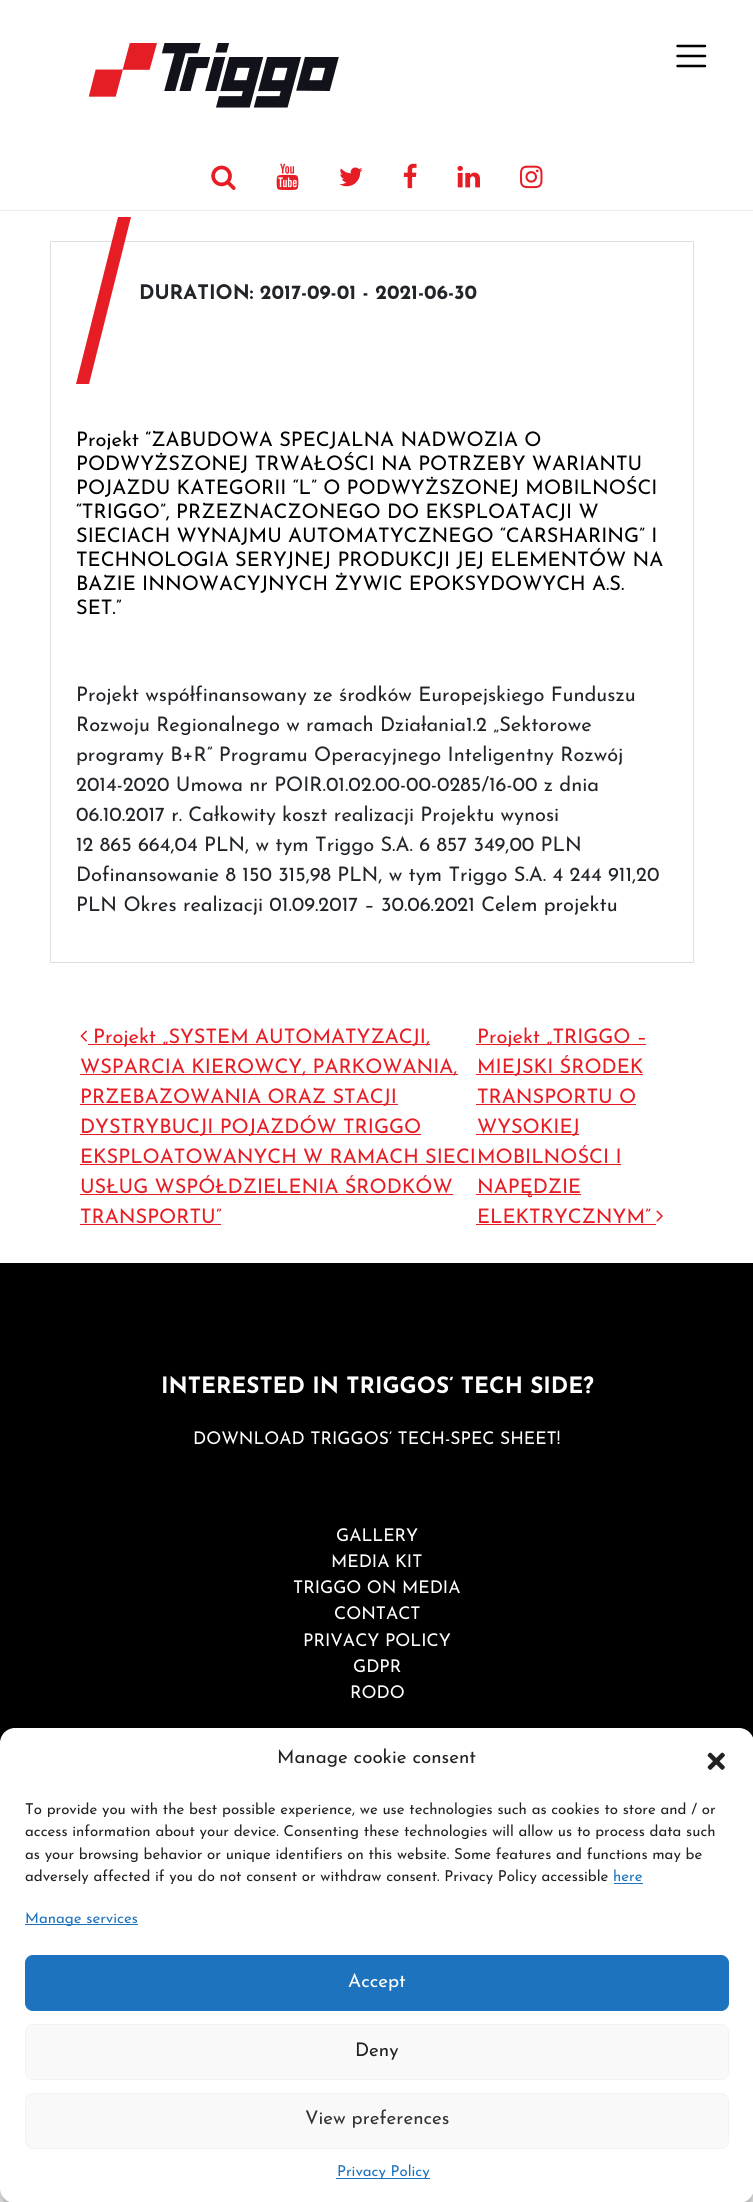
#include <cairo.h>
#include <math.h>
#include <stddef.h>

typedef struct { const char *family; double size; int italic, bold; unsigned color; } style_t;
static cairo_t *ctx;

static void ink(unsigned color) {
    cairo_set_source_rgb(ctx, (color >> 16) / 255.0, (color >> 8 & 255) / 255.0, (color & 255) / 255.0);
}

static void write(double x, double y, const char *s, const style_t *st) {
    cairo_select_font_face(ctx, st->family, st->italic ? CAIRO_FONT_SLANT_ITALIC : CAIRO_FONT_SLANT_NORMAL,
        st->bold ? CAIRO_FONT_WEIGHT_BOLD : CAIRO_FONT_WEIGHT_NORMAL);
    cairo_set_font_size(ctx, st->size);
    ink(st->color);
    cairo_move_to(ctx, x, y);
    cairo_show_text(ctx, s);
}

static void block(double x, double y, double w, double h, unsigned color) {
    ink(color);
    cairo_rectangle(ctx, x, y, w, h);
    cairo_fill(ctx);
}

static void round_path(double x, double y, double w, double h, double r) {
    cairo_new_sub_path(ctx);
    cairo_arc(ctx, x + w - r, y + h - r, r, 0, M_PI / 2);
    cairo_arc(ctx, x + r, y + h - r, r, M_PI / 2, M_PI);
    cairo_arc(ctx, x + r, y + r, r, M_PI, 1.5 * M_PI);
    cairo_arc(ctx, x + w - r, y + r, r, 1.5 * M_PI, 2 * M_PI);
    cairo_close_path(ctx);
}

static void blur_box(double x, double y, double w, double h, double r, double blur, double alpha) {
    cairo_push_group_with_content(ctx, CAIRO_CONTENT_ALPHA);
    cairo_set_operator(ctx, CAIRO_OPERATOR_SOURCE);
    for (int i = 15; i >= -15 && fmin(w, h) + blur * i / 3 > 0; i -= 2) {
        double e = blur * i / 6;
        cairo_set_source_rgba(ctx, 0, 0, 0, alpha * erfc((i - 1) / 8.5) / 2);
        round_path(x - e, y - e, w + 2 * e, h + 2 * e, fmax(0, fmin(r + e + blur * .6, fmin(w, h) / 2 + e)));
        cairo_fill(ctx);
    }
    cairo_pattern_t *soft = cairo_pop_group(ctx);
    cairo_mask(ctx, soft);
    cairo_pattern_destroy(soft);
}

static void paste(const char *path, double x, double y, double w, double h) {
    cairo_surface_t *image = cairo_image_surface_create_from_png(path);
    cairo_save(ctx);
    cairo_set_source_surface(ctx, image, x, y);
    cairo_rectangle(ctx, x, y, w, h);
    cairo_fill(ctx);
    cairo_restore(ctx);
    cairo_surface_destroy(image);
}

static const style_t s1 = {"Josefin Sans", 20, 0, 1, 0x212529};
static const style_t s2 = {"Josefin Sans", 20, 0, 0, 0x000000};
static const style_t s3 = {"Josefin Sans", 20, 0, 0, 0x212529};
static const style_t s4 = {"Josefin Sans", 20, 0, 0, 0xe71d25};
static const style_t s5 = {"Josefin Sans", 22.5, 0, 1, 0xffffff};
static const style_t s6 = {"Josefin Sans", 17.5, 0, 0, 0xffffff};
static const style_t s7 = {"Josefin Sans", 18.75, 0, 0, 0x222222};
static const style_t s8 = {"Josefin Sans", 15, 0, 0, 0x222222};
static const style_t s9 = {"Josefin Sans", 15, 0, 0, 0x1e73be};
static const style_t s10 = {"Josefin Sans", 18.75, 0, 0, 0xffffff};
static const style_t s11 = {"Josefin Sans", 18.75, 0, 0, 0x333333};

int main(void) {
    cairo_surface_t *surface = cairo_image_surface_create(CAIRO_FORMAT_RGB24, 753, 2202);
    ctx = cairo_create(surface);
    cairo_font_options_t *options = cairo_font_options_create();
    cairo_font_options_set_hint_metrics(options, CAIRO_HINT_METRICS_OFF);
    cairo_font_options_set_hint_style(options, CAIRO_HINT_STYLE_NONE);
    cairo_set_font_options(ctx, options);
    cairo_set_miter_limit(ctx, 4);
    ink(0xffffff);
    cairo_paint(ctx);
    block(0, 210, 753, 1, 0xececec);
    paste("pic1.png", 89, 43, 250, 65);
    cairo_new_path(ctx);
    cairo_move_to(ctx, 677.5, 46);
    cairo_line_to(ctx, 705, 46);
    cairo_move_to(ctx, 677.5, 56);
    cairo_line_to(ctx, 705, 56);
    cairo_move_to(ctx, 677.5, 66);
    cairo_line_to(ctx, 705, 66);
    ink(0x000000);
    cairo_set_line_width(ctx, 2.5);
    cairo_set_line_cap(ctx, CAIRO_LINE_CAP_ROUND);
    cairo_stroke(ctx);
    paste("pic2.png", 211, 165, 25, 25);
    paste("pic3.png", 276, 163, 23, 27);
    paste("pic4.png", 339, 167, 24, 20);
    paste("pic5.png", 403, 163, 14, 26);
    paste("pic6.png", 457, 165, 23, 23);
    paste("pic7.png", 520, 165, 23, 24);
    cairo_rectangle(ctx, 50.5, 241.5, 643, 721);
    ink(0xdfdfdf);
    cairo_set_line_width(ctx, 1);
    cairo_set_line_cap(ctx, CAIRO_LINE_CAP_BUTT);
    cairo_stroke(ctx);
    ink(0xe71d25);
    cairo_new_path(ctx);
    cairo_move_to(ctx, 118, 217);
    cairo_line_to(ctx, 131, 217);
    cairo_line_to(ctx, 89, 384);
    cairo_line_to(ctx, 76, 384);
    cairo_close_path(ctx);
    cairo_fill(ctx);
    write(139, 299, "DURATION: 2017-09-01 - 2021-06-30", &s1);
    write(76, 446, "Projekt “ZABUDOWA SPECJALNA NADWOZIA O", &s2);
    write(76, 470, "PODWYŻSZONEJ TRWAŁOŚCI NA POTRZEBY WARIANTU", &s2);
    write(76, 494, "POJAZDU KATEGORII “L” O PODWYŻSZONEJ MOBILNOŚCI", &s2);
    write(76, 518, "“TRIGGO”, PRZEZNACZONEGO DO EKSPLOATACJI W", &s2);
    write(76, 542, "SIECIACH WYNAJMU AUTOMATYCZNEGO “CARSHARING” I", &s2);
    write(76, 566, "TECHNOLOGIA SERYJNEJ PRODUKCJI JEJ ELEMENTÓW NA", &s2);
    write(76, 590, "BAZIE INNOWACYJNYCH ŻYWIC EPOKSYDOWYCH A.S.", &s2);
    write(76, 614, "SET.”", &s2);
    write(76, 701, "Projekt współfinansowany ze środków Europejskiego Funduszu", &s3);
    write(76, 731, "Rozwoju Regionalnego w ramach Działania1.2 „Sektorowe", &s3);
    write(76, 761, "programy B+R” Programu Operacyjnego Inteligentny Rozwój", &s3);
    write(76, 791, "2014-2020 Umowa nr POIR.01.02.00-00-0285/16-00 z dnia", &s3);
    write(76, 821, "06.10.2017 r. Całkowity koszt realizacji Projektu wynosi", &s3);
    write(76, 851, "12 865 664,04 PLN, w tym Triggo S.A. 6 857 349,00 PLN", &s3);
    write(76, 881, "Dofinansowanie 8 150 315,98 PLN, w tym Triggo S.A. 4 244 911,20", &s3);
    write(76, 911, "PLN Okres realizacji 01.09.2017 – 30.06.2021 Celem projektu", &s3);
    paste("pic8.png", 80, 1030, 7, 12);
    block(88, 1044, 342, 1, 0xe71d25);
    write(93, 1043, "Projekt „SYSTEM AUTOMATYZACJI,", &s4);
    block(80, 1074, 378, 1, 0xe71d25);
    write(80, 1073, "WSPARCIA KIEROWCY, PARKOWANIA,", &s4);
    block(80, 1104, 318, 1, 0xe71d25);
    write(80, 1103, "PRZEBAZOWANIA ORAZ STACJI", &s4);
    block(80, 1134, 341, 1, 0xe71d25);
    write(80, 1133, "DYSTRYBUCJI POJAZDÓW TRIGGO", &s4);
    write(80, 1163, "EKSPLOATOWANYCH W RAMACH SIECI", &s4);
    block(80, 1164, 541, 1, 0xe71d25);
    write(80, 1193, "USŁUG WSPÓŁDZIELENIA ŚRODKÓW", &s4);
    block(80, 1194, 373, 1, 0xe71d25);
    write(80, 1223, "TRANSPORTU”", &s4);
    block(80, 1224, 141, 1, 0xe71d25);
    block(476, 1044, 170, 1, 0xe71d25);
    write(477, 1043, "Projekt „TRIGGO –", &s4);
    block(476, 1074, 167, 1, 0xe71d25);
    write(477, 1073, "MIEJSKI ŚRODEK", &s4);
    write(477, 1103, "TRANSPORTU O", &s4);
    block(476, 1104, 160, 1, 0xe71d25);
    block(476, 1134, 103, 1, 0xe71d25);
    write(477, 1133, "WYSOKIEJ", &s4);
    write(477, 1163, "MOBILNOŚCI I", &s4);
    block(476, 1194, 105, 1, 0xe71d25);
    write(477, 1193, "NAPĘDZIE", &s4);
    write(477, 1223, "ELEKTRYCZNYM”", &s4);
    block(476, 1224, 180, 1, 0xe71d25);
    paste("pic9.png", 656, 1210, 7, 12);
    block(0, 1263, 753, 480, 0x000000);
    write(161, 1393, "INTERESTED IN TRIGGOS’ TECH SIDE?", &s5);
    write(193, 1444, "DOWNLOAD TRIGGOS’ TECH-SPEC SHEET!", &s6);
    write(336, 1541, "GALLERY", &s6);
    write(331, 1567, "MEDIA KIT", &s6);
    write(293, 1593, "TRIGGO ON MEDIA", &s6);
    write(334, 1619, "CONTACT", &s6);
    write(303, 1646, "PRIVACY POLICY", &s6);
    write(353, 1672, "GDPR", &s6);
    write(350, 1698, "RODO", &s6);
    ink(0x000000);
    blur_box(0, 1735, 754, 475, 15, 4, 0.23);
    blur_box(0, 1740, 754, 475, 15, 12.5, 0.19);
    ink(0xffffff);
    round_path(0, 1728, 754, 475, 15);
    cairo_fill(ctx);
    write(277, 1763, "Manage cookie consent", &s7);
    paste("pic10.png", 707, 1752, 18, 18);
    write(25, 1814, "To provide you with the best possible experience, we use technologies such as cookies to store and / or", &s8);
    write(25, 1836, "access information about your device. Consenting these technologies will allow us to process data such", &s8);
    write(25, 1859, "as your browsing behavior or unique identifiers on this website. Some features and functions may be", &s8);
    write(25, 1881, "adversely affected if you do not consent or withdraw consent. Privacy Policy accessible", &s8);
    write(613, 1881, "here", &s9);
    block(614, 1883, 29, 1, 0x1e73be);
    block(25, 1924, 113, 1, 0x1e73be);
    write(25, 1923, "Manage services", &s9);
    round_path(25.5, 1955.5, 703, 55, 7.5);
    cairo_fill_preserve(ctx);
    cairo_stroke(ctx);
    write(348, 1987, "Accept", &s10);
    ink(0xf9f9f9);
    round_path(25.5, 2024.5, 703, 55, 7.5);
    cairo_fill_preserve(ctx);
    ink(0xf2f2f2);
    cairo_stroke(ctx);
    write(355, 2056, "Deny", &s7);
    ink(0xf9f9f9);
    round_path(25.5, 2093.5, 703, 55, 7.5);
    cairo_fill_preserve(ctx);
    ink(0xf2f2f2);
    cairo_stroke(ctx);
    write(305, 2124, "View preferences", &s11);
    block(336, 2178, 94, 1, 0x1e73be);
    write(337, 2176, "Privacy Policy", &s9);
    cairo_surface_write_to_png(surface, "screenshot.png");
    cairo_font_options_destroy(options);
    cairo_destroy(ctx);
    cairo_surface_destroy(surface);
    return 0;
}
